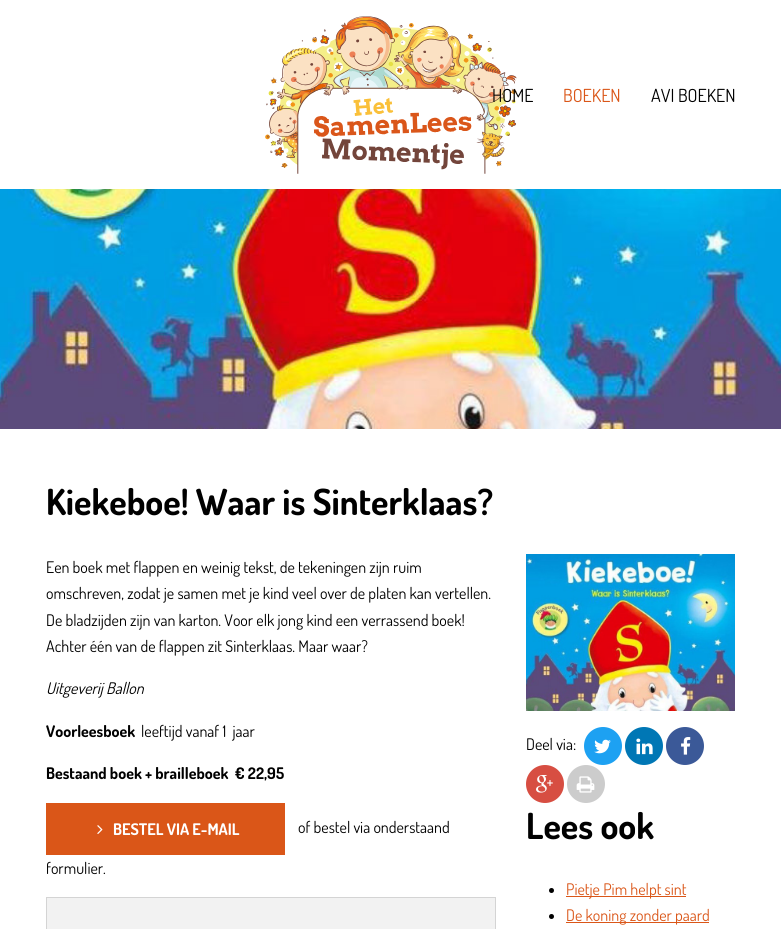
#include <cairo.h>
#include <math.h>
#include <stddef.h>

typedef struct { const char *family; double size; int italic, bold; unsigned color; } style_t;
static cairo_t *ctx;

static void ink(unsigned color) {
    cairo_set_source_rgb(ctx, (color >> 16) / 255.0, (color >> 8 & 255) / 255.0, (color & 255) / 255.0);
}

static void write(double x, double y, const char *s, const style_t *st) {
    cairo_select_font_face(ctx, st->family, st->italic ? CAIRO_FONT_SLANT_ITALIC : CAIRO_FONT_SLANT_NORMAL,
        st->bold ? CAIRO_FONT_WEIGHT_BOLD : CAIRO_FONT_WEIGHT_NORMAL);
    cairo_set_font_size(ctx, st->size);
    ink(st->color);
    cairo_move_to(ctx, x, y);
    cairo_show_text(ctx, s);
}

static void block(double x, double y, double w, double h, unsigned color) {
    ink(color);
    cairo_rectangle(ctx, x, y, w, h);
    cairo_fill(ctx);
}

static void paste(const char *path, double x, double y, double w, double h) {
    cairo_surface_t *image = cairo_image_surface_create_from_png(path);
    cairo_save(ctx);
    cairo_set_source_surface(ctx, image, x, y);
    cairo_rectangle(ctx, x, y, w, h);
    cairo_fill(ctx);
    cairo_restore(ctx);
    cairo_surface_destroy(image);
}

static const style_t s1 = {"Dosis", 18, 0, 0, 0x000000};
static const style_t s2 = {"Dosis", 18, 0, 0, 0xda5618};
static const style_t s3 = {"Dosis", 36, 0, 1, 0x000000};
static const style_t s4 = {"Dosis", 16, 0, 0, 0x000000};
static const style_t s5 = {"Dosis", 16, 1, 0, 0x000000};
static const style_t s6 = {"Dosis", 16, 0, 1, 0x000000};
static const style_t s7 = {"Dosis", 16, 0, 1, 0xffffff};
static const style_t s8 = {"Dosis", 16, 0, 0, 0xda5618};

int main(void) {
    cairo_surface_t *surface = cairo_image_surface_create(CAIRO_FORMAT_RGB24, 781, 929);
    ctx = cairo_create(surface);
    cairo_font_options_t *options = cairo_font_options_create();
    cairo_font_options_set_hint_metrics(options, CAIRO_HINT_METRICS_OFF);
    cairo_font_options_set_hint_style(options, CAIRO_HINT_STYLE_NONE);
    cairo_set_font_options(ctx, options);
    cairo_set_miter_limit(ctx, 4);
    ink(0xffffff);
    cairo_paint(ctx);
    paste("pic1.png", 265, 16, 252, 158);
    write(492, 102, "HOME", &s1);
    write(563, 102, "BOEKEN", &s2);
    write(651, 102, "AVI BOEKEN", &s1);
    paste("pic2.png", 0, 189, 781, 240);
    write(46, 515, "Kiekeboe! Waar is Sinterklaas?", &s3);
    write(46, 573, "Een boek met flappen en weinig tekst, de tekeningen zijn ruim", &s4);
    write(46, 599, "omschreven, zodat je samen met je kind veel over de platen kan vertellen.", &s4);
    write(46, 626, "De bladzijden zijn van karton. Voor elk jong kind een verrassend boek!", &s4);
    write(46, 652, "Achter één van de flappen zit Sinterklaas. Maar waar?", &s4);
    write(46, 694, "Uitgeverij Ballon", &s5);
    write(46, 737, "Voorleesboek", &s6);
    write(141, 737, "leeftijd vanaf 1  jaar", &s4);
    write(46, 779, "Bestaand boek + brailleboek  € 22,95", &s6);
    block(46, 803, 239, 52, 0xda5618);
    paste("pic3.png", 97, 825, 6, 9);
    write(113, 835, "BESTEL VIA E-MAIL", &s7);
    write(298, 833, "of bestel via onderstaand", &s4);
    write(46, 874, "formulier.", &s4);
    ink(0xf2f2f2);
    cairo_rectangle(ctx, 46.5, 897.5, 449, 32);
    cairo_fill_preserve(ctx);
    ink(0xd4d4d4);
    cairo_set_line_width(ctx, 1);
    cairo_stroke(ctx);
    paste("pic4.png", 526, 554, 209, 157);
    write(526, 750, "Deel via:", &s4);
    ink(0x1da1f2);
    cairo_new_path(ctx);
    cairo_arc(ctx, 603, 746, 19, 0, 2 * M_PI);
    cairo_fill(ctx);
    paste("pic5.png", 594, 739, 17, 15);
    ink(0x0077b5);
    cairo_arc(ctx, 644, 746, 19, 0, 2 * M_PI);
    cairo_fill(ctx);
    paste("pic6.png", 636, 738, 17, 17);
    ink(0x3b5998);
    cairo_arc(ctx, 685, 746, 19, 0, 2 * M_PI);
    cairo_fill(ctx);
    paste("pic7.png", 681, 737, 10, 18);
    ink(0xd74e42);
    cairo_arc(ctx, 545, 784, 19, 0, 2 * M_PI);
    cairo_fill(ctx);
    paste("pic8.png", 536, 775, 17, 18);
    ink(0xcccccc);
    cairo_arc(ctx, 586, 784, 19, 0, 2 * M_PI);
    cairo_fill(ctx);
    paste("pic9.png", 576, 776, 19, 17);
    write(526, 839, "Lees ook", &s3);
    cairo_new_path(ctx);
    cairo_arc(ctx, 551.5, 890.5, 2.5, 0, 2 * M_PI);
    cairo_fill(ctx);
    block(566, 896, 120, 1, 0xda5618);
    write(566, 895, "Pietje Pim helpt sint", &s8);
    ink(0x000000);
    cairo_new_path(ctx);
    cairo_arc(ctx, 551.5, 916.5, 2.5, 0, 2 * M_PI);
    cairo_fill(ctx);
    block(566, 922, 143, 1, 0xda5618);
    write(566, 921, "De koning zonder paard", &s8);
    cairo_surface_write_to_png(surface, "screenshot.png");
    cairo_font_options_destroy(options);
    cairo_destroy(ctx);
    cairo_surface_destroy(surface);
    return 0;
}
